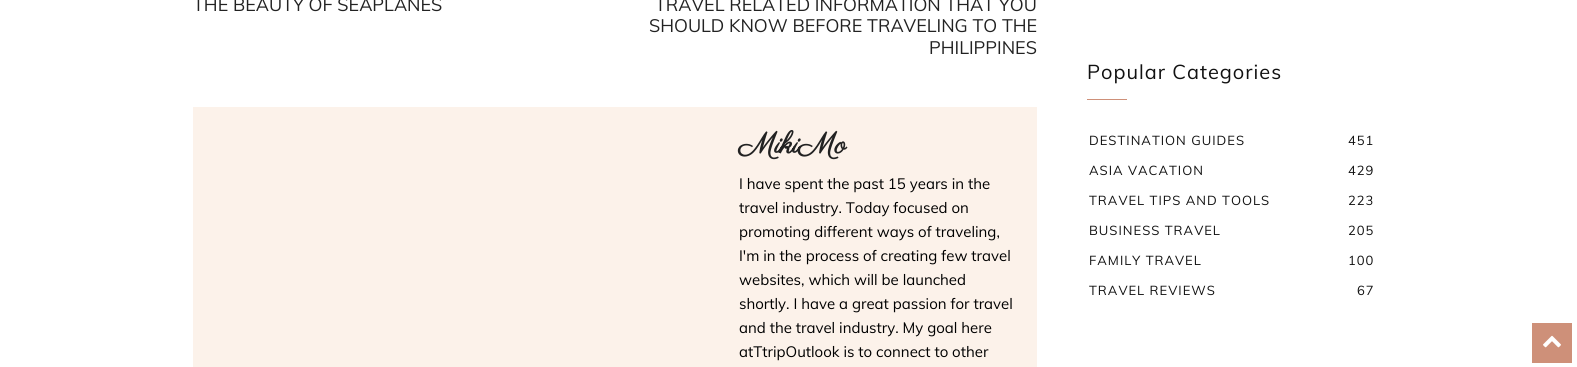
#include <cairo.h>
#include <math.h>
#include <stddef.h>

typedef struct { const char *family; double size; int italic, bold; unsigned color; } style_t;
static cairo_t *ctx;

static void ink(unsigned color) {
    cairo_set_source_rgb(ctx, (color >> 16) / 255.0, (color >> 8 & 255) / 255.0, (color & 255) / 255.0);
}

static void write(double x, double y, const char *s, const style_t *st) {
    cairo_select_font_face(ctx, st->family, st->italic ? CAIRO_FONT_SLANT_ITALIC : CAIRO_FONT_SLANT_NORMAL,
        st->bold ? CAIRO_FONT_WEIGHT_BOLD : CAIRO_FONT_WEIGHT_NORMAL);
    cairo_set_font_size(ctx, st->size);
    ink(st->color);
    cairo_move_to(ctx, x, y);
    cairo_show_text(ctx, s);
}

static void write_spaced(double x, double y, const char *s, double letter, double word) {
    cairo_move_to(ctx, x, y);
    while (*s) {
        char ch[5] = {0};
        int n = 0;
        do ch[n++] = *s++; while ((*s & 0xC0) == 0x80);
        cairo_show_text(ctx, ch);
        cairo_rel_move_to(ctx, letter + word * (*ch == ' '), 0);
    }
}

static void block(double x, double y, double w, double h, unsigned color) {
    ink(color);
    cairo_rectangle(ctx, x, y, w, h);
    cairo_fill(ctx);
}

static void paste(const char *path, double x, double y, double w, double h) {
    cairo_surface_t *image = cairo_image_surface_create_from_png(path);
    cairo_save(ctx);
    cairo_set_source_surface(ctx, image, x, y);
    cairo_rectangle(ctx, x, y, w, h);
    cairo_fill(ctx);
    cairo_restore(ctx);
    cairo_surface_destroy(image);
}

static const style_t s1 = {"Muli", 18, 0, 0, 0x222222};
static const style_t s2 = {"Parisienne", 30, 0, 1, 0x222222};
static const style_t s3 = {"Muli", 15, 0, 0, 0x000000};

int main(void) {
    cairo_surface_t *surface = cairo_image_surface_create(CAIRO_FORMAT_RGB24, 1577, 367);
    ctx = cairo_create(surface);
    cairo_font_options_t *options = cairo_font_options_create();
    cairo_font_options_set_hint_metrics(options, CAIRO_HINT_METRICS_OFF);
    cairo_font_options_set_hint_style(options, CAIRO_HINT_STYLE_NONE);
    cairo_set_font_options(ctx, options);
    cairo_set_miter_limit(ctx, 4);
    ink(0xffffff);
    cairo_paint(ctx);
    write(193, 11, "THE BEAUTY OF SEAPLANES", &s1);
    write(655, 11, "TRAVEL RELATED INFORMATION THAT YOU", &s1);
    write(649, 32, "SHOULD KNOW BEFORE TRAVELING TO THE", &s1);
    write(929, 54, "PHILIPPINES", &s1);
    block(193, 107, 844, 260, 0xfcf2ea);
    write(739, 153, "MikiMo", &s2);
    write(739, 189, "I have spent the past 15 years in the", &s3);
    write(739, 213, "travel industry. Today focused on", &s3);
    write(739, 237, "promoting different ways of traveling,", &s3);
    write(739, 261, "I'm in the process of creating few travel", &s3);
    write(739, 285, "websites, which will be launched", &s3);
    write(739, 309, "shortly. I have a great passion for travel", &s3);
    write(739, 333, "and the travel industry. My goal here", &s3);
    write(739, 357, "atTtripOutlook is to connect to other", &s3);
    cairo_set_font_size(ctx, 20);
    ink(0x111111);
    write_spaced(1087, 79, "Popular Categories", 1, 0);
    block(1087, 99, 40, 1, 0xce9079);
    cairo_set_font_size(ctx, 13);
    ink(0x111111);
    write_spaced(1089, 145, "DESTINATION GUIDES", 1, 0);
    write_spaced(1348, 145, "451", 1, 0);
    write_spaced(1089, 175, "ASIA VACATION", 1, 0);
    write_spaced(1348, 175, "429", 1, 0);
    write_spaced(1089, 205, "TRAVEL TIPS AND TOOLS", 1, 0);
    write_spaced(1348, 205, "223", 1, 0);
    write_spaced(1089, 235, "BUSINESS TRAVEL", 1, 0);
    write_spaced(1348, 235, "205", 1, 0);
    write_spaced(1089, 265, "FAMILY TRAVEL", 1, 0);
    write_spaced(1348, 265, "100", 1, 0);
    write_spaced(1089, 295, "TRAVEL REVIEWS", 1, 0);
    write_spaced(1357, 295, "67", 1, 0);
    block(1532, 323, 40, 40, 0xce9079);
    paste("pic1.png", 1543, 335, 18, 13);
    cairo_surface_write_to_png(surface, "screenshot.png");
    cairo_font_options_destroy(options);
    cairo_destroy(ctx);
    cairo_surface_destroy(surface);
    return 0;
}
